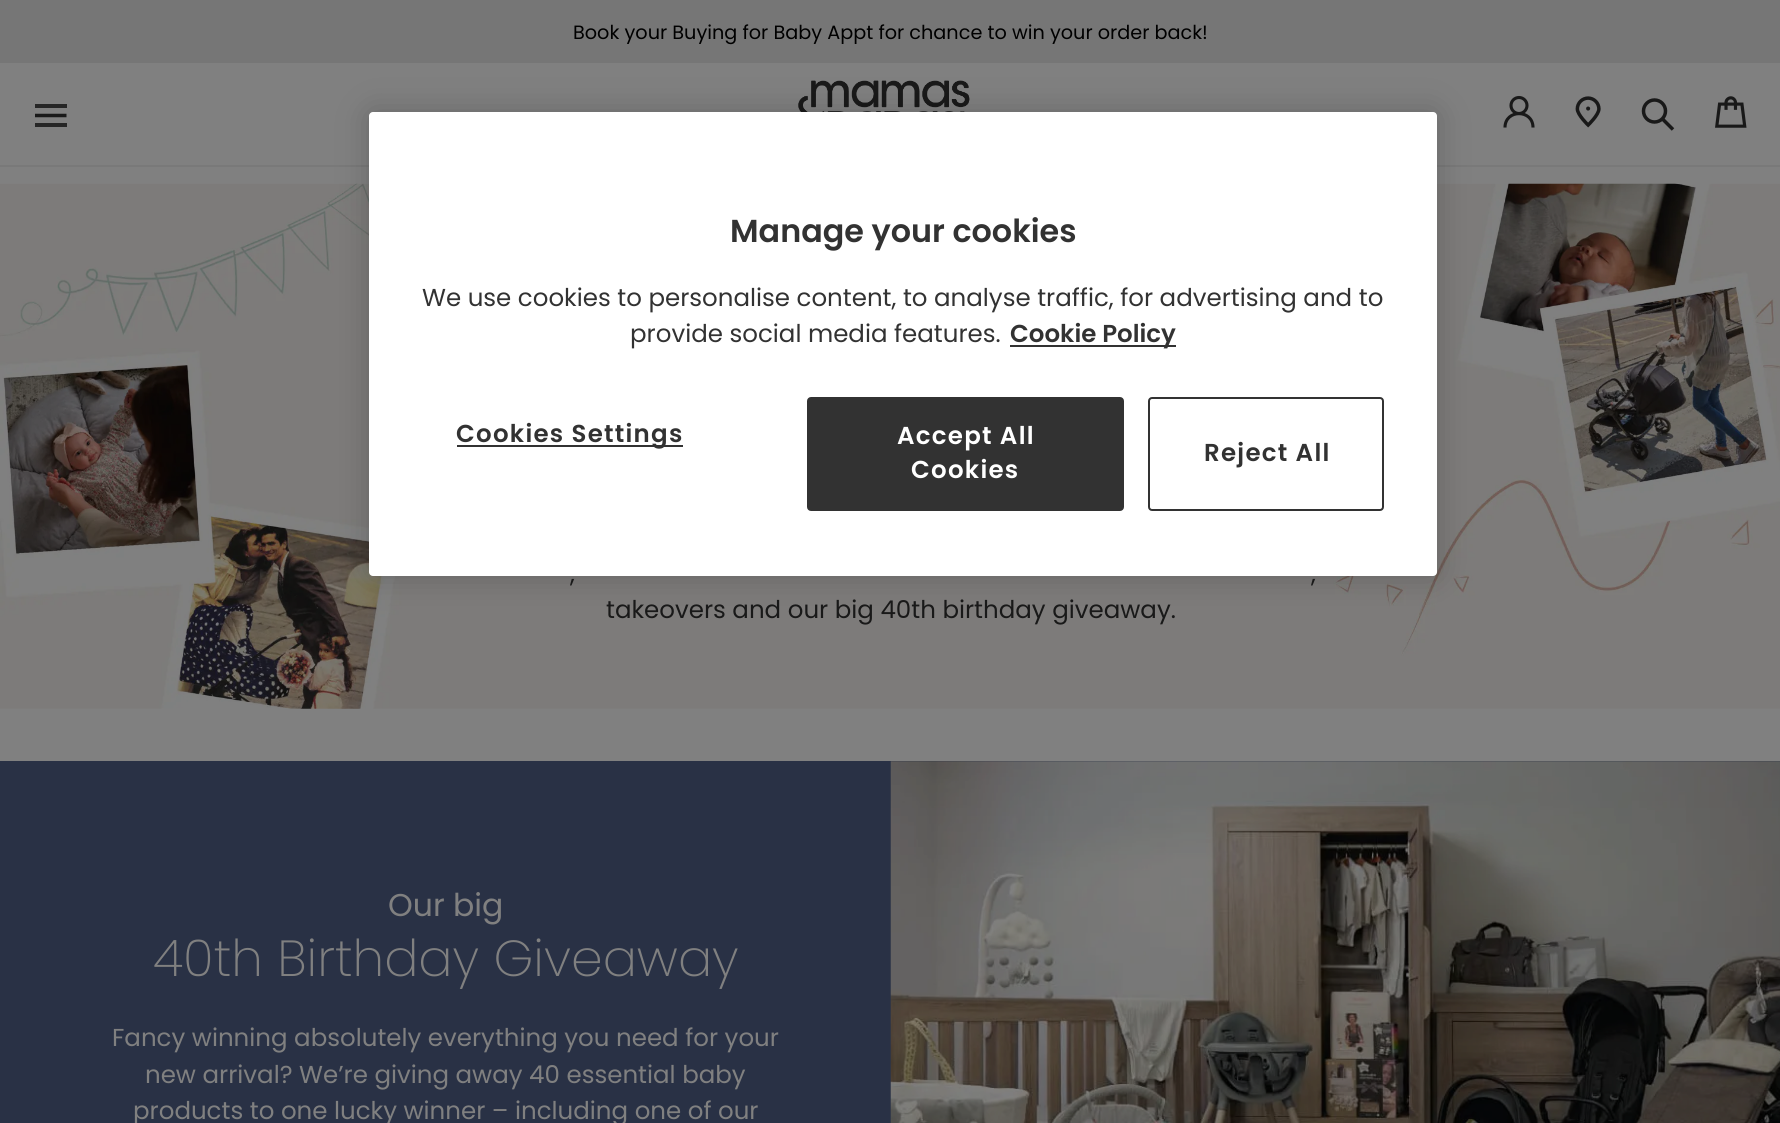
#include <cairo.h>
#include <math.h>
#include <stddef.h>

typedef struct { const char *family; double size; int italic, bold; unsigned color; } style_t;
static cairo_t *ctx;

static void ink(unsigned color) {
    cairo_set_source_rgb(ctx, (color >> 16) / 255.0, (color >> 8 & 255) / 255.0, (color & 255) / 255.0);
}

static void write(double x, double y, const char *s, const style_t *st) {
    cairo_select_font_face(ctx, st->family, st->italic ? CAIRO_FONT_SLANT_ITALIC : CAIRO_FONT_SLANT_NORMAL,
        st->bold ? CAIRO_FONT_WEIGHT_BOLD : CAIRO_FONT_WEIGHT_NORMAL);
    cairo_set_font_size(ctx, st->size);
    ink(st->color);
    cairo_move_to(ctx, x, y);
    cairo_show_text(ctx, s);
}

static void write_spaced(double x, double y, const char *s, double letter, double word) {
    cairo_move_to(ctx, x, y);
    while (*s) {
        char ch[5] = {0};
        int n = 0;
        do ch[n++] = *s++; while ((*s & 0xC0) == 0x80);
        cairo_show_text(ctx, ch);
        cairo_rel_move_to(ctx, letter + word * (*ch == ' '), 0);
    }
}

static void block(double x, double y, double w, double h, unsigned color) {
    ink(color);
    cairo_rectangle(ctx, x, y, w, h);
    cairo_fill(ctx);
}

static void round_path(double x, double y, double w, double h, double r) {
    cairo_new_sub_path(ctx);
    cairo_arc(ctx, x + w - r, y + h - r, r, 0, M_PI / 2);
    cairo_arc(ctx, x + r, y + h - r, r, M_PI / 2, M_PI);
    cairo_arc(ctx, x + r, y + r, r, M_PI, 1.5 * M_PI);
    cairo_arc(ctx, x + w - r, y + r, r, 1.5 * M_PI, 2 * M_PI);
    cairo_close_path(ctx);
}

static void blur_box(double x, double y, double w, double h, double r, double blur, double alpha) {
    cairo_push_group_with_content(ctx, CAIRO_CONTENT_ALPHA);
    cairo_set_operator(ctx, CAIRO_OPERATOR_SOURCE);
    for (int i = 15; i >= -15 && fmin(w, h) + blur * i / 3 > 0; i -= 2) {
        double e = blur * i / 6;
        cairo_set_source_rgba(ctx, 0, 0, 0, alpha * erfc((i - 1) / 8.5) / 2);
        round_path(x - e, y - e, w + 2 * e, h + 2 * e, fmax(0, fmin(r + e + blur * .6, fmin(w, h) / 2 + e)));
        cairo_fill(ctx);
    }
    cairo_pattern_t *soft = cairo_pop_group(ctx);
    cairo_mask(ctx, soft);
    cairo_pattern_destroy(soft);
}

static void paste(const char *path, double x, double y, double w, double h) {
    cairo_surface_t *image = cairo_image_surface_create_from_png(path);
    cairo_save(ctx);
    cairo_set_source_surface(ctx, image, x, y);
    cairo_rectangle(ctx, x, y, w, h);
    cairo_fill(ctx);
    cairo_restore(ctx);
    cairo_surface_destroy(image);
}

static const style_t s1 = {"Poppins", 19.25, 0, 0, 0x000000};
static const style_t s2 = {"Poppins SemiBold", 31.8, 0, 0, 0x323232};
static const style_t s3 = {"Poppins", 24.5, 0, 0, 0x323232};
static const style_t s4 = {"Poppins SemiBold", 24.5, 0, 0, 0x323232};
static const style_t s5 = {"Poppins", 24.5, 0, 0, 0x191919};
static const style_t s6 = {"Poppins", 31.5, 0, 0, 0x808080};
static const style_t s7 = {"Poppins Light", 50.75, 0, 0, 0x808080};
static const style_t s8 = {"Poppins", 24.5, 0, 0, 0x808080};

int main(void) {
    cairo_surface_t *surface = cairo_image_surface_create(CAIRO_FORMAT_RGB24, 1780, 1123);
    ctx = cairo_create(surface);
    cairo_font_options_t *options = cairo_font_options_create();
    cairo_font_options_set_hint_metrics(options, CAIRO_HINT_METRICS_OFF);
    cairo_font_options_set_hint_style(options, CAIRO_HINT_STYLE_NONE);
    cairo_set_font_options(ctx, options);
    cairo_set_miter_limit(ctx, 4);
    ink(0x808080);
    cairo_paint(ctx);
    block(0, 0, 1780, 63, 0x767676);
    write(573, 39, "Book your Buying for Baby Appt for chance to win your order back!", &s1);
    block(0, 165, 1780, 2, 0x797979);
    block(35, 104, 32, 4, 0x262626);
    cairo_new_path(ctx);
    cairo_move_to(ctx, 35, 115.5);
    cairo_line_to(ctx, 66.5, 115.5);
    ink(0x191919);
    cairo_set_line_width(ctx, 3.5);
    cairo_stroke(ctx);
    block(35, 123, 32, 4, 0x262626);
    paste("pic1.png", 798, 80, 172, 32);
    cairo_new_path(ctx);
    cairo_move_to(ctx, 1533, 127.5);
    cairo_curve_to(ctx, 1533, 109, 1505, 109, 1505, 127.5);
    ink(0x191919);
    cairo_set_line_width(ctx, 3.1);
    cairo_stroke(ctx);
    cairo_arc(ctx, 1519, 105.5, 8, 0, 2 * M_PI);
    cairo_stroke(ctx);
    paste("pic2.png", 1575, 96, 26, 32);
    cairo_arc(ctx, 1654.5, 111, 11, 0, 2 * M_PI);
    cairo_set_line_width(ctx, 3.5);
    cairo_stroke(ctx);
    cairo_new_path(ctx);
    cairo_move_to(ctx, 1662, 118.5);
    cairo_line_to(ctx, 1673, 129.5);
    cairo_stroke(ctx);
    paste("pic3.png", 1715, 96, 32, 32);
    paste("pic4.png", 0, 183, 1780, 526);
    ink(0x000000);
    blur_box(369, 112, 1068, 464, 4, 16, 0.2);
    ink(0xffffff);
    round_path(369, 112, 1068, 464, 4);
    cairo_fill(ctx);
    write(730, 242, "Manage your cookies", &s2);
    write(422, 306, "We use cookies to personalise content, to analyse traffic, for advertising and to", &s3);
    write(630, 342, "provide social media features.", &s3);
    block(1010, 345, 166, 2, 0x323232);
    write(1010, 342, "Cookie Policy", &s4);
    block(457, 445, 226, 2, 0x323232);
    write_spaced(456, 442, "Cookies Settings", 1.25, 0);
    round_path(808, 398, 315, 112, 3);
    cairo_fill_preserve(ctx);
    cairo_set_line_width(ctx, 2);
    cairo_stroke(ctx);
    ink(0xffffff);
    write_spaced(897, 444, "Accept All", 1.25, 0);
    write_spaced(911, 478, "Cookies", 1.25, 0);
    round_path(1149, 398, 234, 112, 3);
    ink(0x323232);
    cairo_stroke(ctx);
    write_spaced(1204, 461, "Reject All", 1.25, 0);
    write(570, 582, ",", &s5);
    write(1311, 582, ",", &s5);
    write(606, 618, "takeovers and our big 40th birthday giveaway.", &s5);
    block(0, 761, 1780, 362, 0x293145);
    write(388, 916, "Our big", &s6);
    write(153, 976, "40th Birthday Giveaway", &s7);
    write(112, 1046, "Fancy winning absolutely everything you need for your", &s8);
    write(145, 1083, "new arrival? We’re giving away 40 essential baby", &s8);
    write(133, 1119, "products to one lucky winner – including one of our", &s8);
    paste("pic5.png", 890, 761, 890, 362);
    cairo_surface_write_to_png(surface, "screenshot.png");
    cairo_font_options_destroy(options);
    cairo_destroy(ctx);
    cairo_surface_destroy(surface);
    return 0;
}
